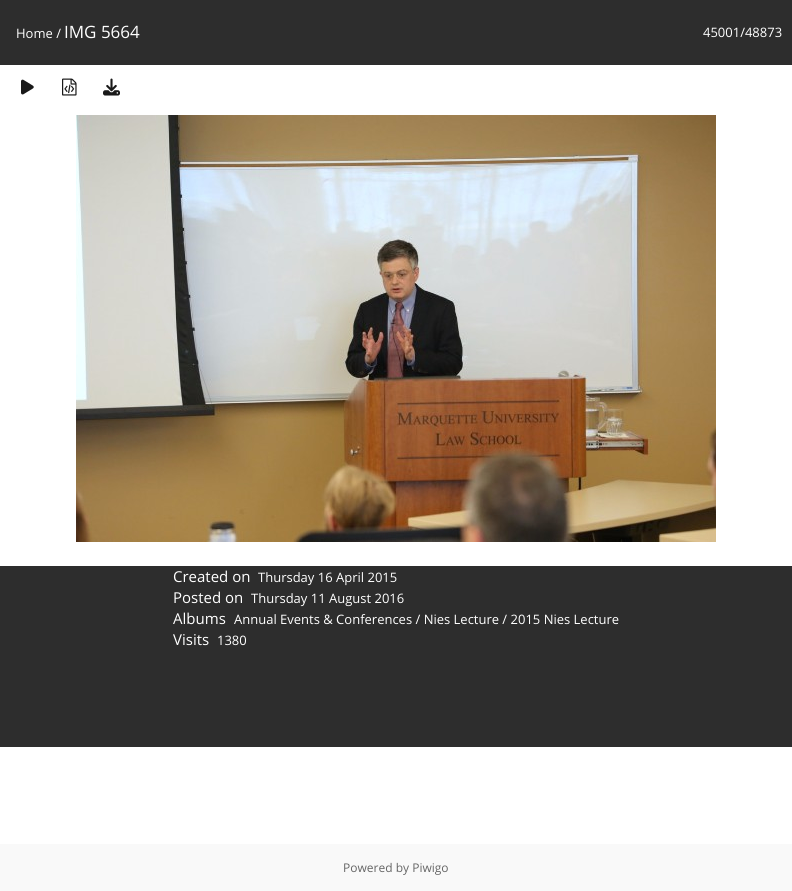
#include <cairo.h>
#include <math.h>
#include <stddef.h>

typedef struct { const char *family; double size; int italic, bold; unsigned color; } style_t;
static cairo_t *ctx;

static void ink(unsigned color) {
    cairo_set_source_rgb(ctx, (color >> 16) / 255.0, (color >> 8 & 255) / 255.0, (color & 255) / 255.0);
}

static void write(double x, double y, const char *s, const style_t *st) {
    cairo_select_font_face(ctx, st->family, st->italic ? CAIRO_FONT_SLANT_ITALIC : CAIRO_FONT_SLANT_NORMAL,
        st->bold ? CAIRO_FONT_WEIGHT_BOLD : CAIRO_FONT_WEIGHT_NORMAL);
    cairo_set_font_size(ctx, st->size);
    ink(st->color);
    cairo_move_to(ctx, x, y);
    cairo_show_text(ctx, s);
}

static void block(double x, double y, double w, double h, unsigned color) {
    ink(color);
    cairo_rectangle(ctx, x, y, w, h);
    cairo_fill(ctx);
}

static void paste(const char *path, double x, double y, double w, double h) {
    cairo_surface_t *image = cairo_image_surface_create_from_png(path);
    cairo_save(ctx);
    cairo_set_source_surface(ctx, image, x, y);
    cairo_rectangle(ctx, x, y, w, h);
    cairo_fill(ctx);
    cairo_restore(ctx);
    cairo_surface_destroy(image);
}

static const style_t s1 = {"Open Sans", 13, 0, 0, 0xffffff};
static const style_t s2 = {"Open Sans", 17, 0, 0, 0xffffff};
static const style_t s3 = {"Open Sans", 15, 0, 0, 0xffffff};
static const style_t s4 = {"Open Sans", 12, 0, 0, 0x666666};

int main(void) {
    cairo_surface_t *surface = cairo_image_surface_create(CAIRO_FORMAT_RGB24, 792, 891);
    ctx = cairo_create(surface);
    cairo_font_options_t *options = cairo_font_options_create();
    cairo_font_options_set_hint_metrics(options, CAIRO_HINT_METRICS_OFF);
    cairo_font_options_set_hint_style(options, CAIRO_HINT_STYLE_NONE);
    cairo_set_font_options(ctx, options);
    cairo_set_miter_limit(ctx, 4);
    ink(0xffffff);
    cairo_paint(ctx);
    block(0, 0, 792, 65, 0x2d2d2d);
    write(16, 38, "Home /", &s1);
    write(64, 38, "IMG 5664", &s2);
    write(703, 37, "45001/48873", &s1);
    paste("pic1.png", 21, 79, 13, 16);
    paste("pic2.png", 62, 78, 15, 18);
    paste("pic3.png", 103, 78, 17, 18);
    paste("pic4.png", 76, 115, 640, 427);
    block(0, 566, 792, 181, 0x2d2d2d);
    write(173, 582, "Created on", &s3);
    write(258, 582, "Thursday 16 April 2015", &s1);
    write(173, 603, "Posted on", &s3);
    write(251, 603, "Thursday 11 August 2016", &s1);
    write(173, 624, "Albums", &s3);
    write(234, 624, "Annual Events & Conferences / Nies Lecture / 2015 Nies Lecture", &s1);
    write(173, 645, "Visits", &s3);
    write(217, 645, "1380", &s1);
    block(0, 844, 792, 47, 0xf9f9f9);
    write(343, 872, "Powered by Piwigo", &s4);
    cairo_surface_write_to_png(surface, "screenshot.png");
    cairo_font_options_destroy(options);
    cairo_destroy(ctx);
    cairo_surface_destroy(surface);
    return 0;
}
